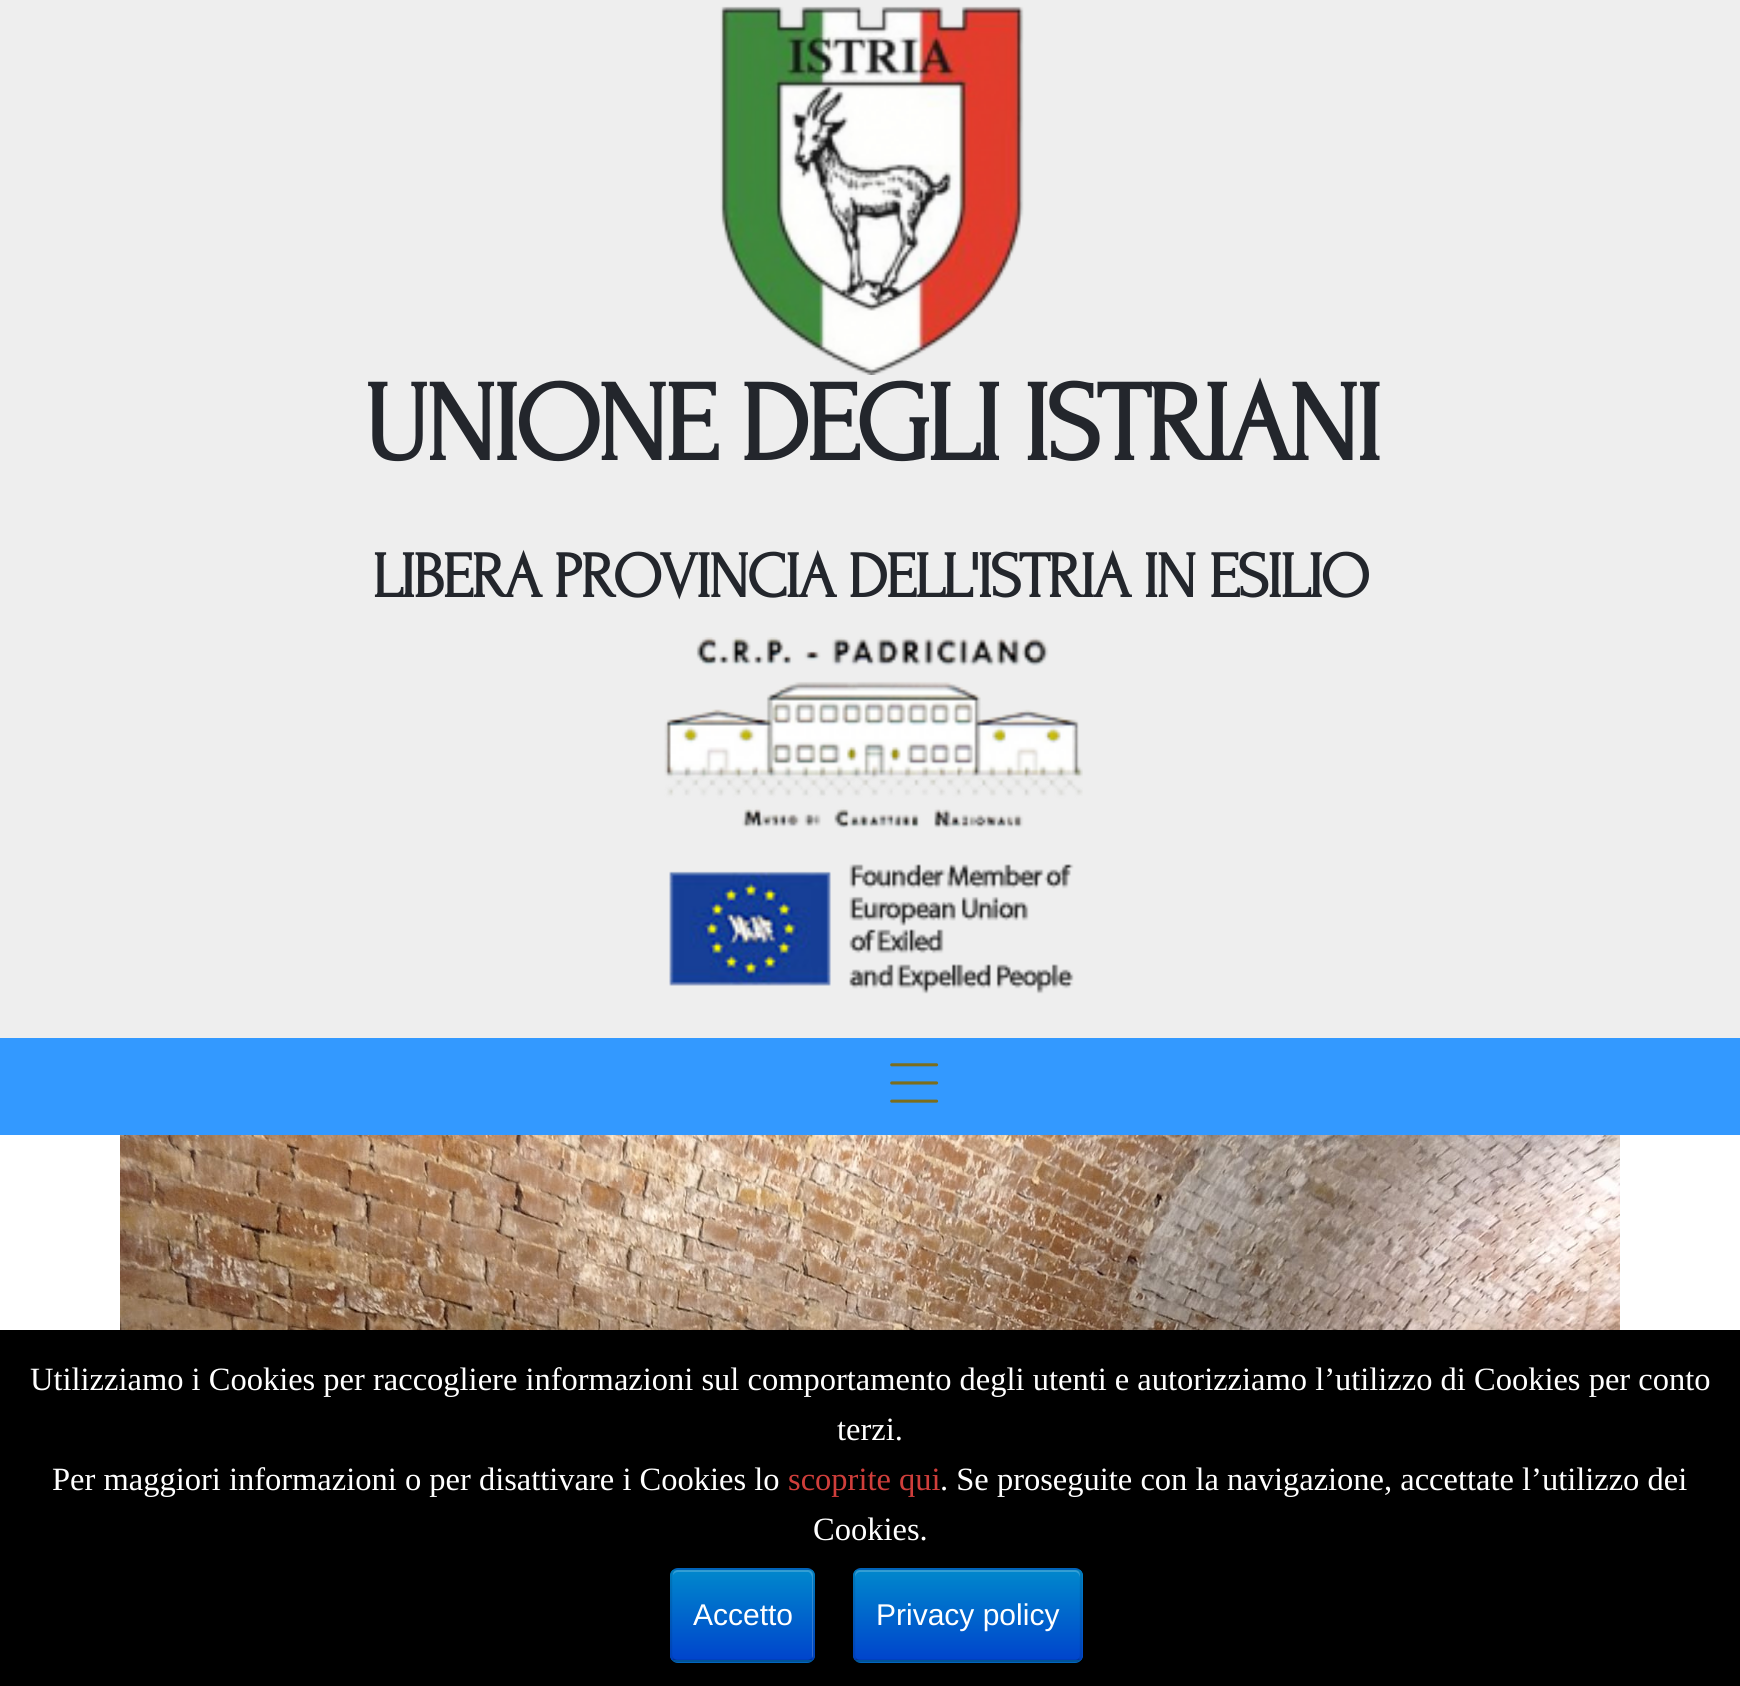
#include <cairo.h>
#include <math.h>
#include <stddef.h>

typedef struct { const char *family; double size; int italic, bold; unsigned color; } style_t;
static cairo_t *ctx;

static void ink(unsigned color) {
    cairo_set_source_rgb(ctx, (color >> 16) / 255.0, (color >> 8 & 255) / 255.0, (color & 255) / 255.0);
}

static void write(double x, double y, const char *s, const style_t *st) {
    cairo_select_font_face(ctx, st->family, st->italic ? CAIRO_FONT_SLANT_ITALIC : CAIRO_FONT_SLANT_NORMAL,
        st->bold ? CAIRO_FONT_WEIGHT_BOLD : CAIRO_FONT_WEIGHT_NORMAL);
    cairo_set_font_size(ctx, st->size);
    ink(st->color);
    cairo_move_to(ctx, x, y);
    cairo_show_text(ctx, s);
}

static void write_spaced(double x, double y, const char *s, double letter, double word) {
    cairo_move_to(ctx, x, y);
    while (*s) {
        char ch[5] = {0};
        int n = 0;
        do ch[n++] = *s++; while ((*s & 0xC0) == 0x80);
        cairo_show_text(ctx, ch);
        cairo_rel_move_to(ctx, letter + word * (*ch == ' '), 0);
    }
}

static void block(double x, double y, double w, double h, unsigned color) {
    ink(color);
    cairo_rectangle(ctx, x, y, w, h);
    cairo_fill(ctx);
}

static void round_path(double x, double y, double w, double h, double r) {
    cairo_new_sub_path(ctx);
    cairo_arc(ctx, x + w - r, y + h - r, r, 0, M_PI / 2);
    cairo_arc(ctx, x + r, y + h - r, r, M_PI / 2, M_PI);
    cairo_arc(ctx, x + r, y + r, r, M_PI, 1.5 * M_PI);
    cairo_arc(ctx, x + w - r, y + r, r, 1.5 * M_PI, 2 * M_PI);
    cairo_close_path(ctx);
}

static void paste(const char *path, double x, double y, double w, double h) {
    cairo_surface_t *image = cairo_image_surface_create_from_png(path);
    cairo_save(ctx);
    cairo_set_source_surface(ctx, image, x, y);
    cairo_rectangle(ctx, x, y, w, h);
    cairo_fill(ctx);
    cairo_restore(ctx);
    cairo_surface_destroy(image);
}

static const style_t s1 = {"Liberation Serif", 32.5, 0, 0, 0xffffff};
static const style_t s2 = {"Liberation Serif", 32.5, 0, 0, 0xd03e3b};
static const style_t s3 = {"Liberation Sans", 30, 0, 0, 0xffffff};

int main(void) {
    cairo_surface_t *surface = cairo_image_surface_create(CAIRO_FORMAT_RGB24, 1740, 1686);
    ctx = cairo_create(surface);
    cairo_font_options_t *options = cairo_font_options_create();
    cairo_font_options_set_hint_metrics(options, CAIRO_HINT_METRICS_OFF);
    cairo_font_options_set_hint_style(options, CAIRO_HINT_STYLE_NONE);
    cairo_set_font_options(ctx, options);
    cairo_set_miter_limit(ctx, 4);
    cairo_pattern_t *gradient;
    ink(0xffffff);
    cairo_paint(ctx);
    block(0, 0, 1740, 1038, 0xeeeeee);
    paste("pic1.png", 720, 6, 304, 369);
    cairo_select_font_face(ctx, "Forum", CAIRO_FONT_SLANT_NORMAL, CAIRO_FONT_WEIGHT_BOLD);
    cairo_set_font_size(ctx, 113.75);
    ink(0x23262c);
    write_spaced(363, 460, "UNIONE DEGLI ISTRIANI", -4.55, 0);
    cairo_set_font_size(ctx, 65);
    write_spaced(372, 597, "LIBERA PROVINCIA DELL'ISTRIA IN ESILIO", -2.6, 0);
    paste("pic2.png", 664, 637, 419, 191);
    paste("pic3.png", 669, 864, 405, 130);
    block(0, 1038, 1740, 97, 0x3399ff);
    paste("pic4.png", 890, 1063, 49, 40);
    paste("pic5.png", 120, 1135, 1500, 195);
    block(0, 1330, 1740, 356, 0x000000);
    write(30, 1390, "Utilizziamo i Cookies per raccogliere informazioni sul comportamento degli utenti e autorizziamo l’utilizzo di Cookies per conto", &s1);
    write(837, 1440, "terzi.", &s1);
    write(52, 1490, "Per maggiori informazioni o per disattivare i Cookies lo", &s1);
    write(788, 1490, "scoprite qui", &s2);
    write(940, 1490, ". Se proseguite con la navigazione, accettate l’utilizzo dei", &s1);
    write(813, 1540, "Cookies.", &s1);
    ink(0x006dcc);
    round_path(670, 1568, 145, 95, 8);
    cairo_fill(ctx);
    cairo_save(ctx);
    round_path(670, 1568, 145, 95, 8);
    cairo_clip(ctx);
    gradient = cairo_pattern_create_linear(743, 1570, 743, 1660);
    cairo_pattern_add_color_stop_rgba(gradient, 0, 0, 0.533, 0.8, 1);
    cairo_pattern_add_color_stop_rgba(gradient, 1, 0, 0.267, 0.8, 1);
    cairo_set_source(ctx, gradient);
    cairo_pattern_destroy(gradient);
    cairo_rectangle(ctx, 670, 1570, 145, 90);
    cairo_fill(ctx);
    cairo_restore(ctx);
    cairo_set_source_rgba(ctx, 1, 1, 1, 0.2);
    cairo_new_path(ctx);
    cairo_move_to(ctx, 678, 1572);
    cairo_line_to(ctx, 808, 1572);
    cairo_curve_to(ctx, 810, 1572, 812, 1575, 812, 1578);
    cairo_line_to(ctx, 812, 1658);
    cairo_curve_to(ctx, 813, 1657, 813, 1656, 813, 1655);
    cairo_line_to(ctx, 813, 1575);
    cairo_curve_to(ctx, 813, 1572, 811, 1570, 808, 1570);
    cairo_line_to(ctx, 678, 1570);
    cairo_curve_to(ctx, 675, 1570, 673, 1572, 673, 1575);
    cairo_curve_to(ctx, 674, 1573, 676, 1572, 678, 1572);
    cairo_close_path(ctx);
    cairo_fill(ctx);
    cairo_new_path(ctx);
    cairo_move_to(ctx, 812, 1659.5);
    cairo_curve_to(ctx, 810.5, 1660.5, 809, 1661, 807.5, 1661);
    cairo_line_to(ctx, 677.5, 1661);
    cairo_curve_to(ctx, 676, 1661, 674.5, 1660.5, 673, 1659.5);
    cairo_set_source_rgba(ctx, 0, 0, 0, 0.25);
    cairo_set_line_width(ctx, 2.5);
    cairo_stroke(ctx);
    cairo_new_path(ctx);
    cairo_move_to(ctx, 673, 1659.5);
    cairo_curve_to(ctx, 672, 1658, 671, 1656.5, 671, 1655);
    cairo_line_to(ctx, 671, 1575);
    cairo_curve_to(ctx, 671, 1573.5, 672, 1572, 673, 1570.5);
    cairo_curve_to(ctx, 674.5, 1569.5, 676, 1569, 677.5, 1569);
    cairo_line_to(ctx, 807.5, 1569);
    cairo_curve_to(ctx, 809, 1569, 810.5, 1569.5, 812, 1570.5);
    cairo_curve_to(ctx, 813, 1572, 814, 1573.5, 814, 1575);
    cairo_line_to(ctx, 814, 1655);
    cairo_curve_to(ctx, 814, 1656.5, 813, 1658, 812, 1659.5);
    cairo_set_source_rgba(ctx, 0, 0, 0, 0.1);
    cairo_stroke(ctx);
    write(693, 1625, "Accetto", &s3);
    ink(0x006dcc);
    round_path(853, 1568, 230, 95, 8);
    cairo_fill(ctx);
    cairo_save(ctx);
    round_path(853, 1568, 230, 95, 8);
    cairo_clip(ctx);
    gradient = cairo_pattern_create_linear(968, 1570, 968, 1660);
    cairo_pattern_add_color_stop_rgba(gradient, 0, 0, 0.533, 0.8, 1);
    cairo_pattern_add_color_stop_rgba(gradient, 1, 0, 0.267, 0.8, 1);
    cairo_set_source(ctx, gradient);
    cairo_pattern_destroy(gradient);
    cairo_rectangle(ctx, 853, 1570, 230, 90);
    cairo_fill(ctx);
    cairo_restore(ctx);
    cairo_set_source_rgba(ctx, 1, 1, 1, 0.2);
    cairo_new_path(ctx);
    cairo_move_to(ctx, 860, 1572);
    cairo_line_to(ctx, 1075, 1572);
    cairo_curve_to(ctx, 1078, 1572, 1080, 1575, 1080, 1578);
    cairo_line_to(ctx, 1080, 1575);
    cairo_curve_to(ctx, 1080, 1572, 1078, 1570, 1075, 1570);
    cairo_line_to(ctx, 860, 1570);
    cairo_curve_to(ctx, 857, 1570, 855, 1572, 855, 1575);
    cairo_line_to(ctx, 855, 1578);
    cairo_curve_to(ctx, 855, 1575, 857, 1572, 860, 1572);
    cairo_close_path(ctx);
    cairo_fill(ctx);
    cairo_new_path(ctx);
    cairo_move_to(ctx, 1079.5, 1659.5);
    cairo_curve_to(ctx, 1078, 1660.5, 1076.5, 1661, 1075, 1661);
    cairo_line_to(ctx, 860, 1661);
    cairo_curve_to(ctx, 858.5, 1661, 857, 1660.5, 855.5, 1659.5);
    cairo_set_source_rgba(ctx, 0, 0, 0, 0.25);
    cairo_stroke(ctx);
    cairo_new_path(ctx);
    cairo_move_to(ctx, 855.5, 1659.5);
    cairo_curve_to(ctx, 854.5, 1658, 854, 1656.5, 854, 1655);
    cairo_line_to(ctx, 854, 1575);
    cairo_curve_to(ctx, 854, 1573.5, 854.5, 1572, 855.5, 1570.5);
    cairo_curve_to(ctx, 857, 1569.5, 858.5, 1569, 860, 1569);
    cairo_line_to(ctx, 1075, 1569);
    cairo_curve_to(ctx, 1076.5, 1569, 1078, 1569.5, 1079.5, 1570.5);
    cairo_curve_to(ctx, 1080.5, 1572, 1081, 1573.5, 1081, 1575);
    cairo_line_to(ctx, 1081, 1655);
    cairo_curve_to(ctx, 1081, 1656.5, 1080.5, 1658, 1079.5, 1659.5);
    cairo_set_source_rgba(ctx, 0, 0, 0, 0.1);
    cairo_stroke(ctx);
    write(876, 1625, "Privacy policy", &s3);
    cairo_surface_write_to_png(surface, "screenshot.png");
    cairo_font_options_destroy(options);
    cairo_destroy(ctx);
    cairo_surface_destroy(surface);
    return 0;
}
